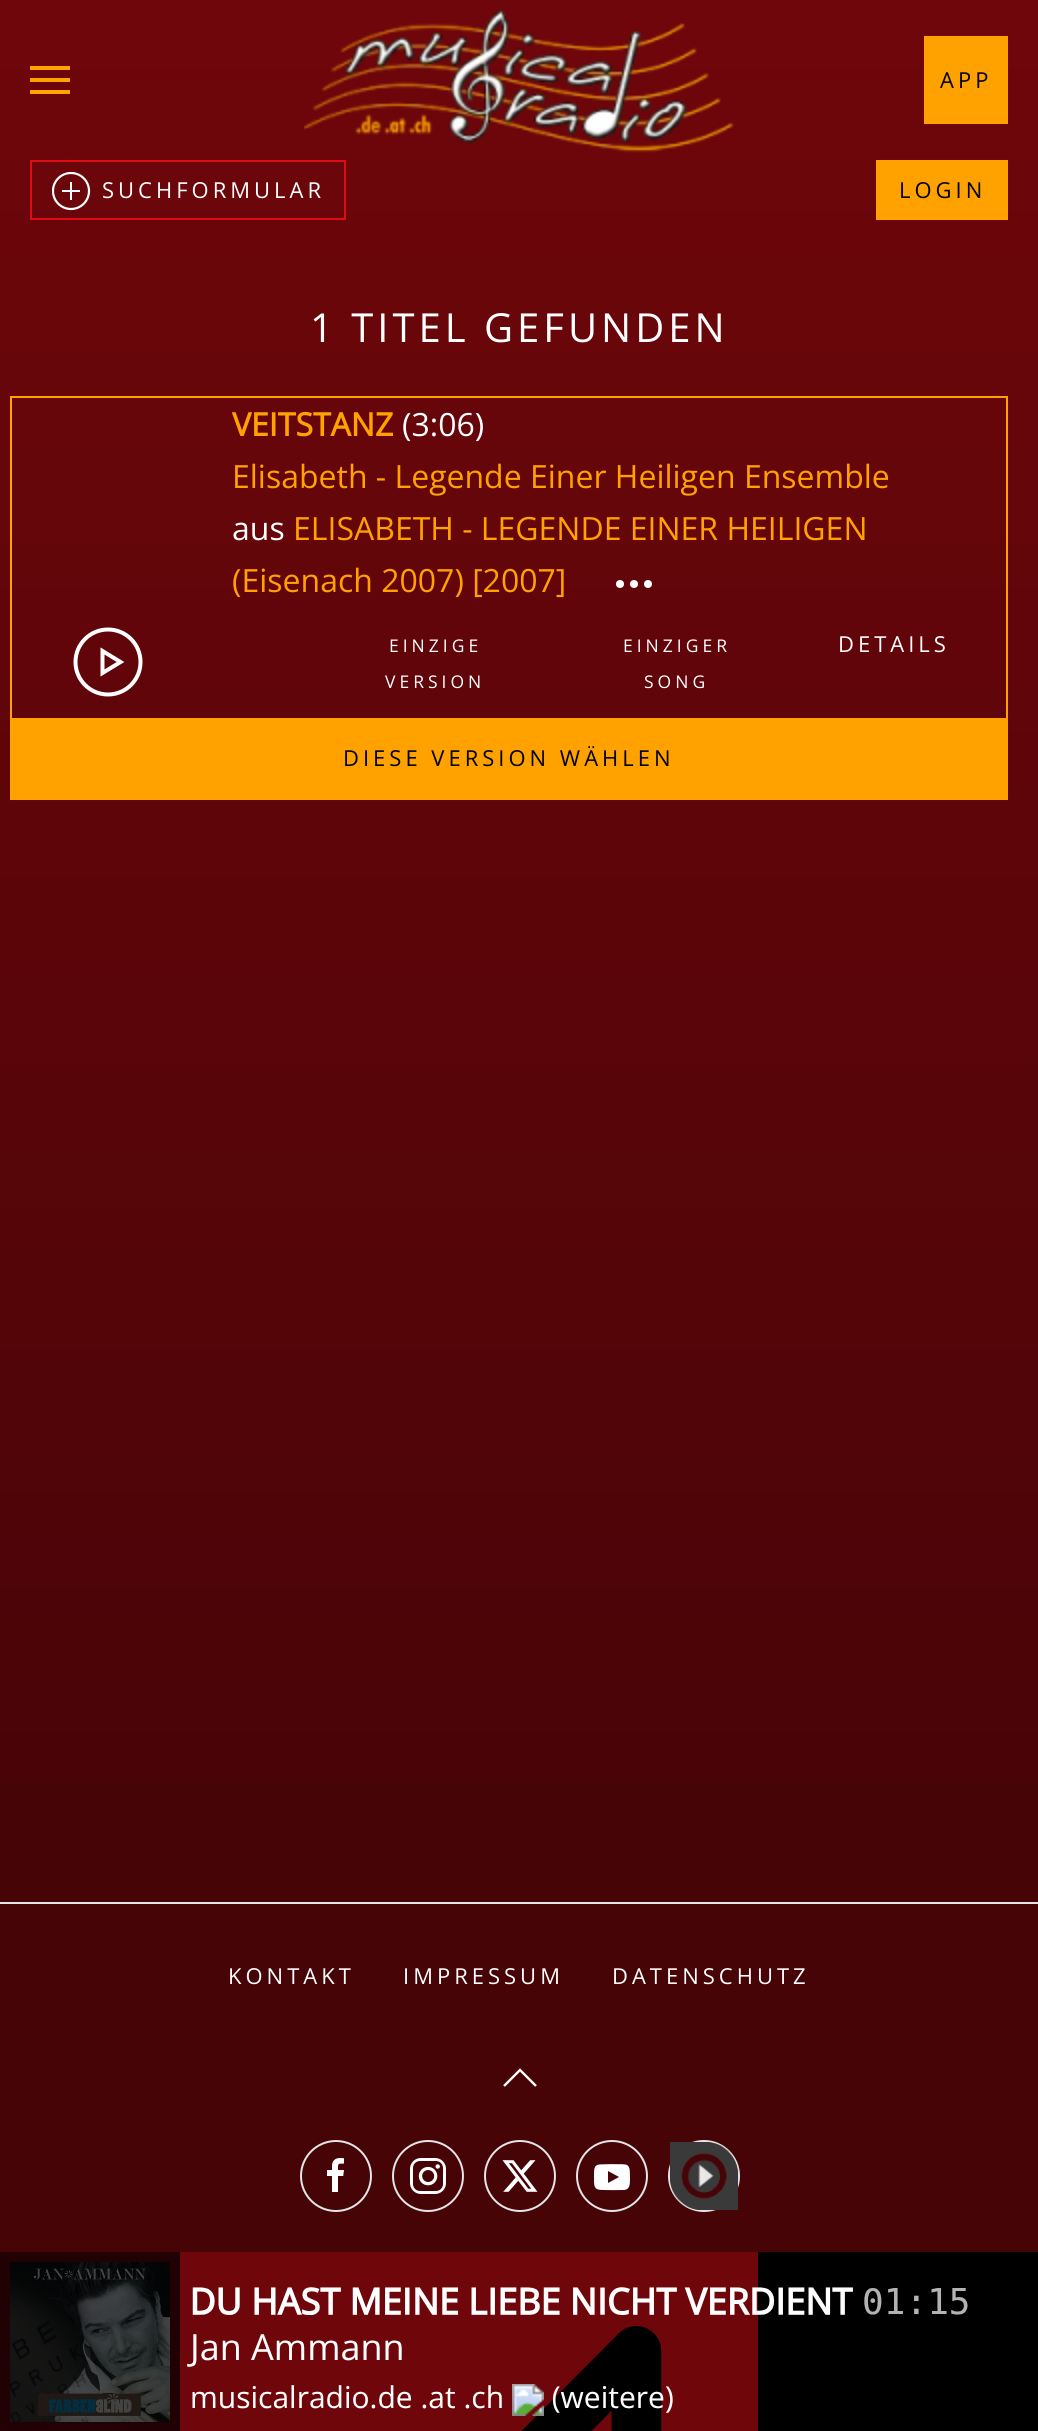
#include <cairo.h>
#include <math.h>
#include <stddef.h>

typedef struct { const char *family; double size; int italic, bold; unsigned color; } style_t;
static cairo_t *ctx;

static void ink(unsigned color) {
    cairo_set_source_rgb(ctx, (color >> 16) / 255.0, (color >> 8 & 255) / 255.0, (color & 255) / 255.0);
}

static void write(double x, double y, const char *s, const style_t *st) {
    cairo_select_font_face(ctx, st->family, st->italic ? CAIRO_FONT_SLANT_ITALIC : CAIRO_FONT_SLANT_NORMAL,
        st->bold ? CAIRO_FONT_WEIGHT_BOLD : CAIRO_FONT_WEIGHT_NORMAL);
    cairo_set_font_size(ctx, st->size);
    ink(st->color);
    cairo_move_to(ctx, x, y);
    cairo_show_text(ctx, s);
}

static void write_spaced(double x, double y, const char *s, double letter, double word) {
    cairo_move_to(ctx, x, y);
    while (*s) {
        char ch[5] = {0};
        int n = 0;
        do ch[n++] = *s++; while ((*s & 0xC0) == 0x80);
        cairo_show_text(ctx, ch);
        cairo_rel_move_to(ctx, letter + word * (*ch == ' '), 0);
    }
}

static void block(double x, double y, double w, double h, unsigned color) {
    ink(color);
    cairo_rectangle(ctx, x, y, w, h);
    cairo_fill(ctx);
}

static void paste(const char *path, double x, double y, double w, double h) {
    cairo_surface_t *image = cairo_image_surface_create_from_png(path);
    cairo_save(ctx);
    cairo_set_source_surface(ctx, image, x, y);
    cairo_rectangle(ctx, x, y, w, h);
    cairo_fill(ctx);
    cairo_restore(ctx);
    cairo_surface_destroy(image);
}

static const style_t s1 = {"Open Sans", 32, 0, 1, 0xffa200};
static const style_t s2 = {"Open Sans", 32, 0, 0, 0xffffff};
static const style_t s3 = {"Open Sans", 32, 0, 0, 0xffa200};

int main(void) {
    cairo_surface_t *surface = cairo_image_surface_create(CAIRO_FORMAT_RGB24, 1038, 2431);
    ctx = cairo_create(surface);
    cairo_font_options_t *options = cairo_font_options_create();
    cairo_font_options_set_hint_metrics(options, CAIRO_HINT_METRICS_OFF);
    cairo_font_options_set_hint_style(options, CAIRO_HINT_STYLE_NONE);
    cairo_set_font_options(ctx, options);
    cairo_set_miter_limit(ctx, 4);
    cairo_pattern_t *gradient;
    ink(0x470407);
    cairo_paint(ctx);
    gradient = cairo_pattern_create_linear(519, 0, 519, 1902);
    cairo_pattern_add_color_stop_rgba(gradient, 0, 0.435, 0.024, 0.043, 1);
    cairo_pattern_add_color_stop_rgba(gradient, 1, 0.278, 0.016, 0.027, 1);
    cairo_set_source(ctx, gradient);
    cairo_pattern_destroy(gradient);
    cairo_rectangle(ctx, 0, 0, 1038, 1783);
    cairo_fill(ctx);
    block(30, 66, 40, 4, 0xffa200);
    block(30, 78, 40, 4, 0xffa200);
    block(30, 90, 40, 4, 0xffa200);
    paste("pic1.png", 304, 9, 431, 144);
    block(924, 36, 84, 88, 0xffa200);
    cairo_select_font_face(ctx, "Open Sans", CAIRO_FONT_SLANT_NORMAL, CAIRO_FONT_WEIGHT_NORMAL);
    cairo_set_font_size(ctx, 22);
    ink(0x000000);
    write_spaced(940, 88, "APP", 4, 0);
    cairo_rectangle(ctx, 31, 161, 314, 58);
    ink(0xdd0c15);
    cairo_stroke(ctx);
    cairo_save(ctx);
    cairo_rectangle(ctx, 52, 172, 40, 40);
    cairo_clip(ctx);
    cairo_arc(ctx, 71, 191, 18, 0, 2 * M_PI);
    ink(0xffffff);
    cairo_set_line_width(ctx, 2.2);
    cairo_stroke(ctx);
    cairo_restore(ctx);
    block(70, 182, 2, 18, 0xffffff);
    block(62, 190, 18, 2, 0xffffff);
    write_spaced(102, 198, "SUCHFORMULAR", 4, 0);
    block(876, 160, 132, 60, 0xffa200);
    ink(0x000000);
    write_spaced(899, 198, "LOGIN", 4, 0);
    cairo_set_font_size(ctx, 40);
    ink(0xffffff);
    write_spaced(310, 342, "1 TITEL GEFUNDEN", 4, 0);
    cairo_rectangle(ctx, 11, 397, 996, 402);
    ink(0xffa200);
    cairo_stroke(ctx);
    write(232, 436, "VEITSTANZ", &s1);
    write(402, 436, "(3:06)", &s2);
    write(232, 488, "Elisabeth - Legende Einer Heiligen Ensemble", &s3);
    write(232, 540, "aus", &s2);
    write(293, 540, "ELISABETH - LEGENDE EINER HEILIGEN", &s3);
    write(232, 592, "(Eisenach 2007) [2007]", &s3);
    ink(0xffffff);
    cairo_new_path(ctx);
    cairo_arc(ctx, 620, 584, 4, 0, 2 * M_PI);
    cairo_fill(ctx);
    cairo_arc(ctx, 634, 584, 4, 0, 2 * M_PI);
    cairo_fill(ctx);
    cairo_arc(ctx, 648, 584, 4, 0, 2 * M_PI);
    cairo_fill(ctx);
    cairo_new_path(ctx);
    cairo_move_to(ctx, 102.5, 651);
    cairo_line_to(ctx, 120.5, 662);
    cairo_line_to(ctx, 102.5, 673);
    cairo_close_path(ctx);
    cairo_set_line_width(ctx, 4);
    cairo_stroke(ctx);
    cairo_arc(ctx, 108, 662, 32.5, 0, 2 * M_PI);
    cairo_stroke(ctx);
    cairo_set_font_size(ctx, 17.5);
    write_spaced(389, 652, "EINZIGE", 4, 0);
    write_spaced(385, 688, "VERSION", 4, 0);
    write_spaced(623, 652, "EINZIGER", 4, 0);
    write_spaced(644, 688, "SONG", 4, 0);
    cairo_set_font_size(ctx, 22);
    write_spaced(838, 652, "DETAILS", 4, 0);
    block(12, 718, 994, 80, 0xffa200);
    ink(0x000000);
    write_spaced(343, 766, "DIESE VERSION WÄHLEN", 4, 0);
    block(0, 1902, 1038, 2, 0xe5e5e7);
    ink(0xffffff);
    write_spaced(228, 1984, "KONTAKT", 4, 0);
    write_spaced(403, 1984, "IMPRESSUM", 4, 0);
    write_spaced(612, 1984, "DATENSCHUTZ", 4, 0);
    cairo_new_path(ctx);
    cairo_move_to(ctx, 504, 2086);
    cairo_line_to(ctx, 520, 2070);
    cairo_line_to(ctx, 536, 2086);
    cairo_set_line_width(ctx, 2.4);
    cairo_stroke(ctx);
    cairo_arc(ctx, 336, 2176, 35, 0, 2 * M_PI);
    ink(0xe5e5e7);
    cairo_set_line_width(ctx, 2);
    cairo_stroke(ctx);
    paste("pic2.png", 327, 2158, 17, 34);
    cairo_arc(ctx, 428, 2176, 35, 0, 2 * M_PI);
    cairo_stroke(ctx);
    paste("pic3.png", 410, 2158, 36, 36);
    cairo_arc(ctx, 520, 2176, 35, 0, 2 * M_PI);
    cairo_stroke(ctx);
    paste("pic4.png", 502, 2160, 36, 32);
    cairo_arc(ctx, 612, 2176, 35, 0, 2 * M_PI);
    cairo_stroke(ctx);
    paste("pic5.png", 594, 2164, 36, 27);
    cairo_arc(ctx, 704, 2176, 35, 0, 2 * M_PI);
    cairo_stroke(ctx);
    paste("pic6.png", 670, 2142, 68, 68);
    paste("pic7.png", 0, 2252, 1038, 179);
    cairo_surface_write_to_png(surface, "screenshot.png");
    cairo_font_options_destroy(options);
    cairo_destroy(ctx);
    cairo_surface_destroy(surface);
    return 0;
}
